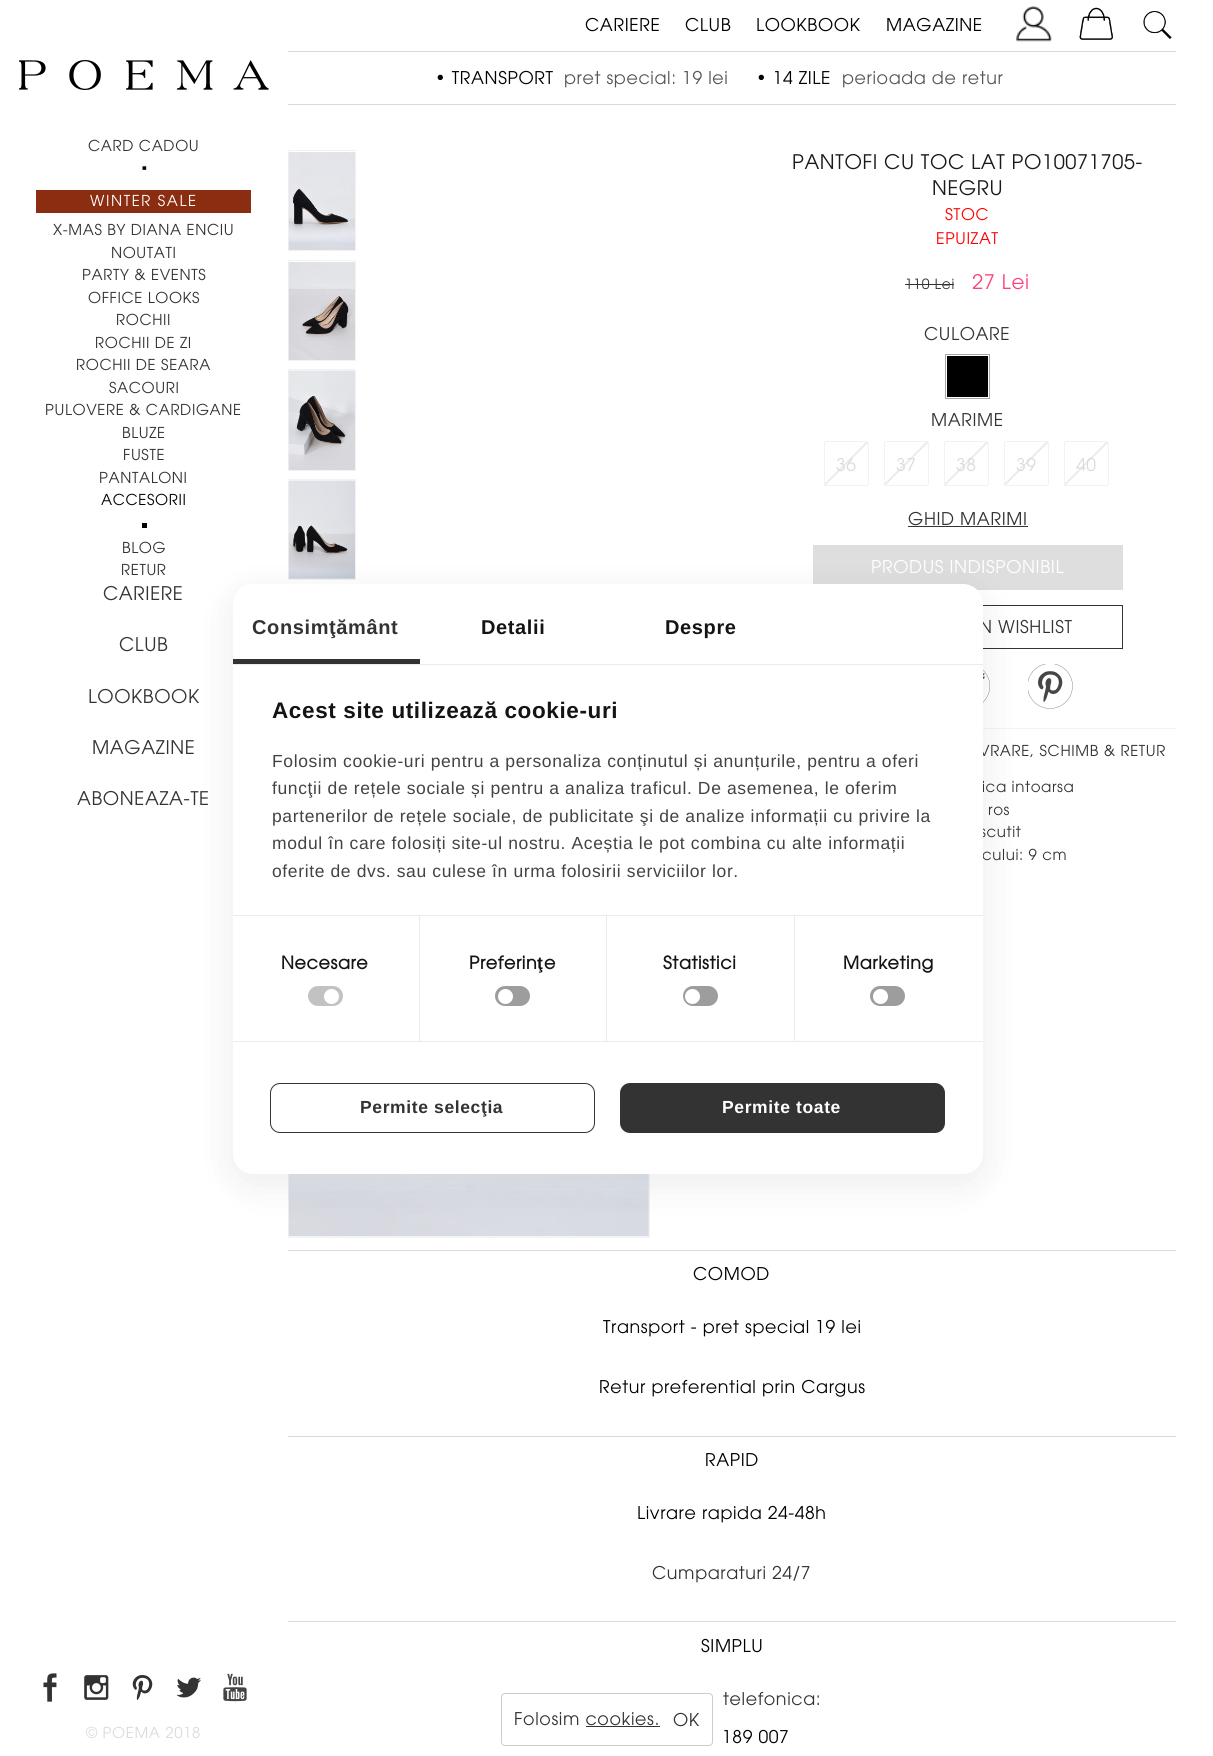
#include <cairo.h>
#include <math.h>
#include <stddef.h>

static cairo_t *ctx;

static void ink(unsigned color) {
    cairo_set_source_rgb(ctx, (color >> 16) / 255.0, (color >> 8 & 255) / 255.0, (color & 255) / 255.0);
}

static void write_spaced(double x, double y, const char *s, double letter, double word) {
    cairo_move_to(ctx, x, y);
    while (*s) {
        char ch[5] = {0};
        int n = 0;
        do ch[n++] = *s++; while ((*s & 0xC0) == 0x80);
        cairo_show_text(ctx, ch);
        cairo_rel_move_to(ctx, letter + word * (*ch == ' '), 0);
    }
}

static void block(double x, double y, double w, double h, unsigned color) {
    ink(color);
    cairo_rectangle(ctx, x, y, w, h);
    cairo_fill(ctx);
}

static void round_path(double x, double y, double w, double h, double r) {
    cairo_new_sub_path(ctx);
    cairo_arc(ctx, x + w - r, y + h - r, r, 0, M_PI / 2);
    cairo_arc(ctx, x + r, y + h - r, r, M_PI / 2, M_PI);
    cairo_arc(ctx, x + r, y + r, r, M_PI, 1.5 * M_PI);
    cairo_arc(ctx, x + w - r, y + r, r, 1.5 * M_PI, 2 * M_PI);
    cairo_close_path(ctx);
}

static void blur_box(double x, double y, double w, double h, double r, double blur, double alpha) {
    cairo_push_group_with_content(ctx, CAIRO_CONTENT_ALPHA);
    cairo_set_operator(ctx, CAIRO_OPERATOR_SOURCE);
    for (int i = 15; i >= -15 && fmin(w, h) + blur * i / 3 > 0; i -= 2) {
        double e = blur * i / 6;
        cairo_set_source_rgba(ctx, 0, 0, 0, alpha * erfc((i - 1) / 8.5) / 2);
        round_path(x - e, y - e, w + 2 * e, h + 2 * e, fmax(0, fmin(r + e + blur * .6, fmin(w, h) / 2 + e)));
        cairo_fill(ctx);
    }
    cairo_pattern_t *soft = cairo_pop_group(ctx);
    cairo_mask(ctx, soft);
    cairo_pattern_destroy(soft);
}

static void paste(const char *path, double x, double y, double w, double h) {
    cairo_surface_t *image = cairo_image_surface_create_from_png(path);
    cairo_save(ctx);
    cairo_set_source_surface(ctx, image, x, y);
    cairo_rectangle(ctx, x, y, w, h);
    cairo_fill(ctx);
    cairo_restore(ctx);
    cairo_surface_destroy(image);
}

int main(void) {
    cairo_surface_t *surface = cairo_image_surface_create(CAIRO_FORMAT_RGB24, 1213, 1756);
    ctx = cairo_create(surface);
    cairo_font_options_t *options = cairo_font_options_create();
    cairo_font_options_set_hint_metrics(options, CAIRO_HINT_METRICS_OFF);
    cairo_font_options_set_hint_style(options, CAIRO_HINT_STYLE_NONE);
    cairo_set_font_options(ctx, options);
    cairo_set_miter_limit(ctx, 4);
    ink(0xffffff);
    cairo_paint(ctx);
    cairo_select_font_face(ctx, "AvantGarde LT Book", CAIRO_FONT_SLANT_NORMAL, CAIRO_FONT_WEIGHT_NORMAL);
    cairo_set_font_size(ctx, 17.5);
    ink(0x000000);
    write_spaced(585, 31, "CARIERE", 0.62, 0);
    write_spaced(685, 31, "CLUB", 0.62, 0);
    write_spaced(756, 31, "LOOKBOOK", 0.62, 0);
    write_spaced(886, 31, "MAGAZINE", 0.62, 0);
    paste("pic1.png", 1016, 6, 36, 36);
    paste("pic2.png", 19, 60, 250, 30);
    block(288, 51, 888, 1, 0xdadada);
    block(288, 104, 888, 1, 0xdadadc);
    ink(0x000000);
    write_spaced(435, 84, "• TRANSPORT", 0.62, 0);
    ink(0x555555);
    write_spaced(564, 84, "pret special: 19 lei", 0.62, 0);
    ink(0x000000);
    write_spaced(756, 84, "• 14 ZILE", 0.62, 0);
    ink(0x555555);
    write_spaced(842, 84, "perioada de retur", 0.62, 0);
    paste("pic3.png", 1079, 7, 34, 33);
    paste("pic4.png", 142, 165, 5, 5);
    cairo_set_font_size(ctx, 15);
    ink(0x333333);
    write_spaced(88, 151, "CARD CADOU", 0.62, 0);
    paste("pic5.png", 1143, 11, 29, 28);
    block(36, 190, 215, 23, 0x8b2d11);
    ink(0xffffff);
    write_spaced(90, 206, "WINTER SALE", 1.6, 0);
    ink(0x333333);
    write_spaced(53, 235, "X-MAS BY DIANA ENCIU", 0.62, 0);
    write_spaced(111, 258, "NOUTATI", 0.62, 0);
    write_spaced(82, 280, "PARTY & EVENTS", 0.62, 0);
    write_spaced(88, 303, "OFFICE LOOKS", 0.62, 0);
    write_spaced(116, 325, "ROCHII", 0.62, 0);
    write_spaced(95, 348, "ROCHII DE ZI", 0.62, 0);
    write_spaced(76, 370, "ROCHII DE SEARA", 0.62, 0);
    write_spaced(109, 393, "SACOURI", 0.62, 0);
    write_spaced(45, 415, "PULOVERE & CARDIGANE", 0.62, 0);
    write_spaced(122, 438, "BLUZE", 0.62, 0);
    write_spaced(123, 460, "FUSTE", 0.62, 0);
    write_spaced(99, 483, "PANTALONI", 0.62, 0);
    ink(0x000000);
    write_spaced(101, 505, "ACCESORII", 0.62, 0);
    block(142, 523, 5, 5, 0x000000);
    ink(0x333333);
    write_spaced(122, 553, "BLOG", 0.62, 0);
    write_spaced(121, 575, "RETUR", 0.62, 0);
    cairo_set_font_size(ctx, 18.75);
    write_spaced(103, 600, "CARIERE", 0.62, 0);
    write_spaced(119, 651, "CLUB", 0.62, 0);
    write_spaced(88, 703, "LOOKBOOK", 0.62, 0);
    write_spaced(92, 754, "MAGAZINE", 0.62, 0);
    write_spaced(77, 805, "ABONEAZA-TE", 0.62, 0);
    cairo_rectangle(ctx, 288.5, 150.5, 67, 100);
    ink(0xf2f2f2);
    cairo_set_line_width(ctx, 1);
    cairo_stroke(ctx);
    paste("pic6.png", 288, 152, 67, 98);
    cairo_rectangle(ctx, 288.5, 260.5, 67, 100);
    cairo_stroke(ctx);
    paste("pic7.png", 288, 262, 67, 98);
    cairo_rectangle(ctx, 288.5, 369.5, 67, 101);
    cairo_stroke(ctx);
    paste("pic8.png", 288, 370, 67, 100);
    cairo_rectangle(ctx, 288.5, 479.5, 67, 100);
    cairo_stroke(ctx);
    paste("pic9.png", 288, 480, 67, 99);
    cairo_rectangle(ctx, 288.5, 699.5, 361, 538);
    cairo_stroke(ctx);
    paste("pic10.png", 288, 1174, 361, 63);
    cairo_set_font_size(ctx, 20);
    ink(0x1a1a1a);
    write_spaced(792, 169, "PANTOFI CU TOC LAT PO10071705-", 0.62, 0);
    write_spaced(932, 195, "NEGRU", 0.62, 0);
    cairo_set_font_size(ctx, 16);
    ink(0xff0000);
    write_spaced(945, 220, "STOC", 0.62, 0);
    write_spaced(936, 244, "EPUIZAT", 0.62, 0);
    cairo_set_font_size(ctx, 14);
    ink(0x333333);
    write_spaced(905, 289, "110 Lei", 0.62, 0);
    block(905, 284, 49, 1, 0x333333);
    cairo_set_font_size(ctx, 20);
    ink(0xff417c);
    write_spaced(972, 289, "27 Lei", 0.62, 0);
    cairo_set_font_size(ctx, 17.5);
    ink(0x333333);
    write_spaced(924, 340, "CULOARE", 0.62, 0);
    block(947, 356, 41, 41, 0x000000);
    cairo_rectangle(ctx, 945.5, 354.5, 44, 44);
    ink(0xa6a6a6);
    cairo_stroke(ctx);
    ink(0x333333);
    write_spaced(931, 426, "MARIME", 0.62, 0);
    paste("pic11.png", 824, 441, 44, 45);
    round_path(824.5, 441.5, 44, 44, 2);
    ink(0xf2f2f2);
    cairo_stroke(ctx);
    ink(0xdadbdc);
    write_spaced(836, 471, "36", 0.62, 0);
    paste("pic12.png", 884, 441, 44, 45);
    round_path(884.5, 441.5, 44, 44, 2);
    ink(0xf2f2f2);
    cairo_stroke(ctx);
    ink(0xdadbdc);
    write_spaced(896, 471, "37", 0.62, 0);
    paste("pic11.png", 944, 441, 44, 45);
    round_path(944.5, 441.5, 44, 44, 2);
    ink(0xf2f2f2);
    cairo_stroke(ctx);
    ink(0xdadbdc);
    write_spaced(956, 471, "38", 0.62, 0);
    paste("pic13.png", 1004, 441, 44, 45);
    round_path(1004.5, 441.5, 44, 44, 2);
    ink(0xf2f2f2);
    cairo_stroke(ctx);
    ink(0xdadbdc);
    write_spaced(1016, 471, "39", 0.62, 0);
    paste("pic12.png", 1064, 441, 44, 45);
    round_path(1064.5, 441.5, 44, 44, 2);
    ink(0xf2f2f2);
    cairo_stroke(ctx);
    ink(0xdadbdc);
    write_spaced(1076, 471, "40", 0.62, 0);
    ink(0x333333);
    write_spaced(908, 525, "GHID MARIMI", 0.62, 0);
    block(908, 526, 120, 1, 0x333333);
    block(813, 545, 310, 45, 0xdedede);
    ink(0xffffff);
    write_spaced(871, 573, "PRODUS INDISPONIBIL", 0.62, 0);
    cairo_rectangle(ctx, 813.5, 605.5, 309, 43);
    ink(0x333333);
    cairo_stroke(ctx);
    write_spaced(979, 633, "N WISHLIST", 0.62, 0);
    paste("pic14.png", 983, 670, 7, 33);
    paste("pic15.png", 1028, 664, 45, 45);
    block(983, 728, 193, 1, 0xf2f2f2);
    cairo_set_font_size(ctx, 15);
    ink(0x333333);
    write_spaced(979, 756, "VRARE, SCHIMB & RETUR", 0.62, 0);
    write_spaced(982, 792, "ica intoarsa", 0.62, 0);
    write_spaced(988, 815, "ros", 0.62, 0);
    write_spaced(980, 837, "scutit", 0.62, 0);
    write_spaced(982, 860, "cului: 9 cm", 0.62, 0);
    block(288, 1250, 888, 1, 0xdadada);
    block(288, 1436, 888, 1, 0xdadada);
    cairo_set_font_size(ctx, 17.5);
    ink(0x000000);
    write_spaced(693, 1280, "COMOD", 0.62, 0);
    write_spaced(603, 1333, "Transport - pret special 19 lei", 0.62, 0);
    write_spaced(599, 1393, "Retur preferential prin Cargus", 0.62, 0);
    block(288, 1621, 888, 1, 0xdadada);
    ink(0x000000);
    write_spaced(705, 1466, "RAPID", 0.62, 0);
    write_spaced(637, 1519, "Livrare rapida 24-48h", 0.62, 0);
    ink(0x333333);
    write_spaced(652, 1579, "Cumparaturi 24/7", 0.62, 0);
    ink(0x000000);
    write_spaced(701, 1652, "SIMPLU", 0.62, 0);
    ink(0x333333);
    write_spaced(723, 1705, "telefonica:", 0.62, 0);
    ink(0x000000);
    write_spaced(722, 1743, "189 007", 0.62, 0);
    round_path(501.5, 1693.5, 211, 52, 3.5);
    ink(0xcccccc);
    cairo_stroke(ctx);
    ink(0x333333);
    write_spaced(514, 1725, "Folosim cookies.", 0.62, 0);
    block(586, 1726, 74, 1, 0x333333);
    write_spaced(673, 1726, "OK", 0.62, 0);
    paste("pic16.png", 43, 1673, 14, 29);
    paste("pic17.png", 84, 1675, 25, 25);
    paste("pic18.png", 132, 1675, 21, 25);
    paste("pic19.png", 176, 1677, 25, 21);
    paste("pic20.png", 223, 1673, 24, 29);
    cairo_set_font_size(ctx, 15);
    ink(0xdadbdc);
    write_spaced(86, 1738, "© POEMA 2018", 0.62, 0);
    ink(0x000000);
    blur_box(233, 594, 750, 590, 20, 20, 0.08);
    ink(0xffffff);
    round_path(233, 584, 750, 590, 20);
    cairo_fill(ctx);
    block(233, 664, 750, 1, 0xebebeb);
    block(233, 659, 187, 5, 0x333333);
    cairo_select_font_face(ctx, "Liberation Sans", CAIRO_FONT_SLANT_NORMAL, CAIRO_FONT_WEIGHT_BOLD);
    cairo_set_font_size(ctx, 20);
    write_spaced(252, 634, "Consimţământ", 0.62, 0);
    ink(0x141414);
    write_spaced(481, 634, "Detalii", 0.62, 0);
    write_spaced(665, 634, "Despre", 0.62, 0);
    cairo_set_font_size(ctx, 22.5);
    write_spaced(272, 718, "Acest site utilizează cookie-uri", 0.62, 0);
    cairo_select_font_face(ctx, "Liberation Sans", CAIRO_FONT_SLANT_NORMAL, CAIRO_FONT_WEIGHT_NORMAL);
    cairo_set_font_size(ctx, 17.5);
    ink(0x434343);
    write_spaced(272, 767, "Folosim cookie-uri pentru a personaliza conținutul și anunțurile, pentru a oferi", 0.62, 0);
    write_spaced(272, 794, "funcţii de rețele sociale și pentru a analiza traficul. De asemenea, le oferim", 0.62, 0);
    write_spaced(272, 822, "partenerilor de rețele sociale, de publicitate şi de analize informații cu privire la", 0.62, 0);
    write_spaced(272, 849, "modul în care folosiți site-ul nostru. Aceștia le pot combina cu alte informații", 0.62, 0);
    write_spaced(272, 877, "oferite de dvs. sau culese în urma folosirii serviciilor lor.", 0.62, 0);
    block(233, 915, 750, 1, 0xebebeb);
    block(233, 1041, 750, 1, 0xebebeb);
    block(419, 916, 1, 125, 0xebebeb);
    cairo_select_font_face(ctx, "AvantGarde LT Book", CAIRO_FONT_SLANT_NORMAL, CAIRO_FONT_WEIGHT_BOLD);
    ink(0x141414);
    write_spaced(281, 969, "Necesare", 0.62, 0);
    ink(0xc2c2c2);
    round_path(308, 986, 35, 20, 10);
    cairo_fill(ctx);
    ink(0xffffff);
    cairo_arc(ctx, 331.5, 996.5, 7.5, 0, 2 * M_PI);
    cairo_fill(ctx);
    block(606, 916, 1, 125, 0xebebeb);
    ink(0x141414);
    write_spaced(469, 969, "Preferin", 0.62, 0);
    cairo_select_font_face(ctx, "Liberation Sans", CAIRO_FONT_SLANT_NORMAL, CAIRO_FONT_WEIGHT_BOLD);
    write_spaced(537, 969, "ţ", 0.62, 0);
    cairo_select_font_face(ctx, "AvantGarde LT Book", CAIRO_FONT_SLANT_NORMAL, CAIRO_FONT_WEIGHT_BOLD);
    write_spaced(544, 969, "e", 0.62, 0);
    ink(0x9d9d9d);
    round_path(495, 986, 35, 20, 10);
    cairo_fill(ctx);
    ink(0xffffff);
    cairo_arc(ctx, 505.5, 996.5, 7.5, 0, 2 * M_PI);
    cairo_fill(ctx);
    block(794, 916, 1, 125, 0xebebeb);
    ink(0x141414);
    write_spaced(663, 969, "Statistici", 0.62, 0);
    ink(0x9d9d9d);
    round_path(683, 986, 35, 20, 10);
    cairo_fill(ctx);
    ink(0xffffff);
    cairo_arc(ctx, 692.5, 996.5, 7.5, 0, 2 * M_PI);
    cairo_fill(ctx);
    ink(0x141414);
    write_spaced(843, 969, "Marketing", 0.62, 0);
    ink(0x9d9d9d);
    round_path(870, 986, 35, 20, 10);
    cairo_fill(ctx);
    ink(0xffffff);
    cairo_arc(ctx, 880.5, 996.5, 7.5, 0, 2 * M_PI);
    cairo_fill(ctx);
    round_path(270.5, 1083.5, 324, 49, 9.5);
    ink(0x333333);
    cairo_stroke(ctx);
    cairo_select_font_face(ctx, "Liberation Sans", CAIRO_FONT_SLANT_NORMAL, CAIRO_FONT_WEIGHT_BOLD);
    write_spaced(360, 1113, "Permite selecţia", 0.62, 0);
    round_path(620, 1083, 325, 50, 10);
    cairo_fill(ctx);
    ink(0xffffff);
    write_spaced(722, 1113, "Permite toate", 0.62, 0);
    cairo_surface_write_to_png(surface, "screenshot.png");
    cairo_font_options_destroy(options);
    cairo_destroy(ctx);
    cairo_surface_destroy(surface);
    return 0;
}
